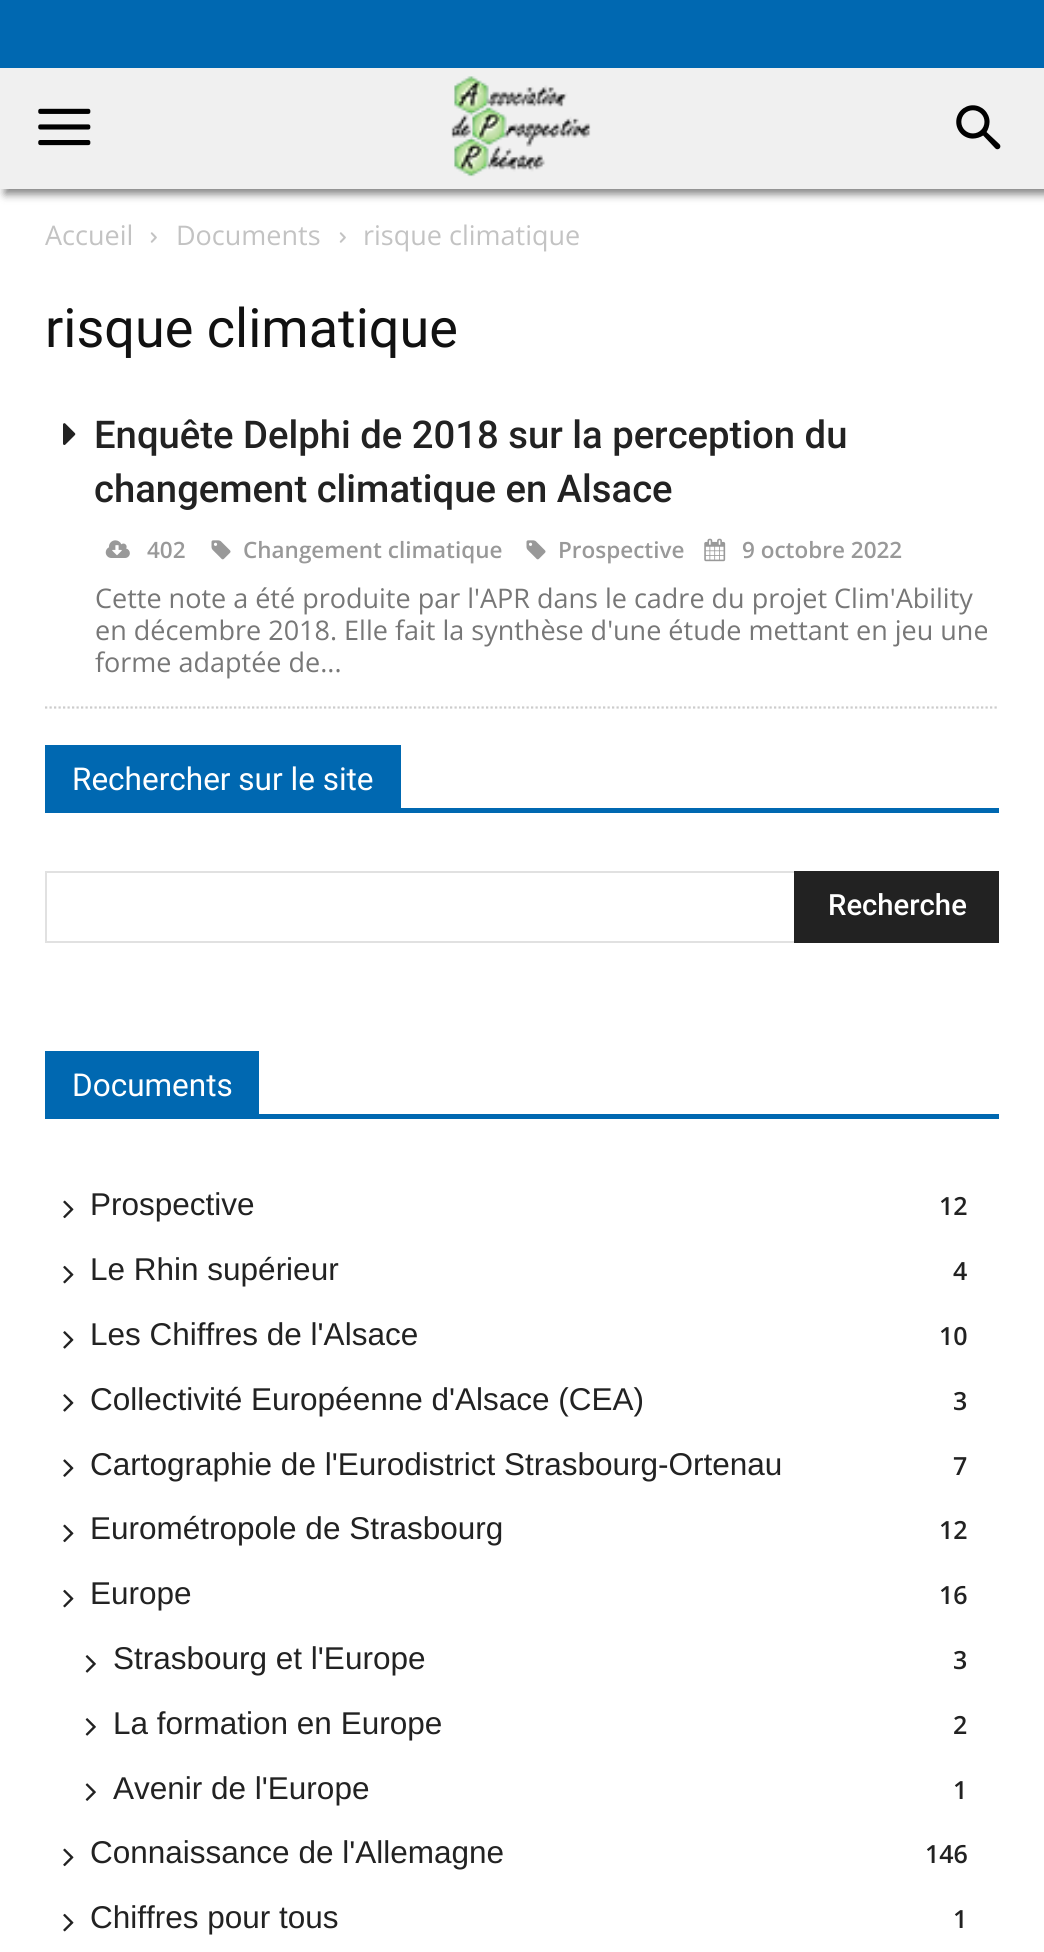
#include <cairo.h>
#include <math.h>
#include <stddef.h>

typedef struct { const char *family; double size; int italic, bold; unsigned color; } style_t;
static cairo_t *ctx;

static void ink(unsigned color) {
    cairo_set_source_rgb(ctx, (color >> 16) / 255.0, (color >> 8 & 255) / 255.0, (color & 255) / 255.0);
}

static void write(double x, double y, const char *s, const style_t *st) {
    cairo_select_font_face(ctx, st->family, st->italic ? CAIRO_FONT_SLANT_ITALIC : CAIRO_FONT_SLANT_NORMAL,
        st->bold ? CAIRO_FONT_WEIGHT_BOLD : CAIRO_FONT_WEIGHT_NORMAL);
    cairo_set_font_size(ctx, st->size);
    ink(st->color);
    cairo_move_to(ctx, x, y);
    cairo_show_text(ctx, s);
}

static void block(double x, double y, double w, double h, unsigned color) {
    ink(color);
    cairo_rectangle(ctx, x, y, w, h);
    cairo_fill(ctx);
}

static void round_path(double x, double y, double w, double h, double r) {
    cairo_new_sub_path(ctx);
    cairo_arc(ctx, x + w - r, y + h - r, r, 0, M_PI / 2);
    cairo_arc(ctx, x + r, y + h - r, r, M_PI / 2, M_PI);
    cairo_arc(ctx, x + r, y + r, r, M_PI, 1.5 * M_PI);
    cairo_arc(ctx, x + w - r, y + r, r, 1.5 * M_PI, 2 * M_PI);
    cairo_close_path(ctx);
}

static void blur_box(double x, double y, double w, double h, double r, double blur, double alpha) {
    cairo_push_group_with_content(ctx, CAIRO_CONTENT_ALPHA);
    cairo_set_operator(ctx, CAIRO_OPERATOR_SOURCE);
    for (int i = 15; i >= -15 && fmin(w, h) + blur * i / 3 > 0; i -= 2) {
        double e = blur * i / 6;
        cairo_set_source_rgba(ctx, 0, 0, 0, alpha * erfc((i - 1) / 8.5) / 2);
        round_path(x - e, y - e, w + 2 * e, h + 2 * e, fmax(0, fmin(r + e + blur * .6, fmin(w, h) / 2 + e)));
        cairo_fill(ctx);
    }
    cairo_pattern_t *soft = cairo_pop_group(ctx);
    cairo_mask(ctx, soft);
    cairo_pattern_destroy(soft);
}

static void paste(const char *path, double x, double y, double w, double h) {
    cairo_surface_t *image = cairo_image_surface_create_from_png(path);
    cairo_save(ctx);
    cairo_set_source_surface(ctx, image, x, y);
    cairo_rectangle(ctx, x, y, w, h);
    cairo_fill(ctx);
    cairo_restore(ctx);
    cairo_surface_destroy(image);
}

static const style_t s1 = {"Open Sans", 27, 0, 0, 0xc3c3c3};
static const style_t s2 = {"Roboto", 54, 0, 0, 0x111111};
static const style_t s3 = {"Roboto Medium", 38.25, 0, 0, 0x222222};
static const style_t s4 = {"Open Sans SemiBold", 22.5, 0, 0, 0x999999};
static const style_t s5 = {"Open Sans", 27, 0, 0, 0x777777};
static const style_t s6 = {"Roboto", 31.5, 0, 0, 0xffffff};
static const style_t s7 = {"Roboto Medium", 29.25, 0, 0, 0xffffff};
static const style_t s8 = {"Liberation Sans", 31.5, 0, 0, 0x222222};
static const style_t s9 = {"Open Sans SemiBold", 25, 0, 0, 0x222222};

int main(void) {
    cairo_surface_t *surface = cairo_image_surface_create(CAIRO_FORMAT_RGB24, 1044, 1952);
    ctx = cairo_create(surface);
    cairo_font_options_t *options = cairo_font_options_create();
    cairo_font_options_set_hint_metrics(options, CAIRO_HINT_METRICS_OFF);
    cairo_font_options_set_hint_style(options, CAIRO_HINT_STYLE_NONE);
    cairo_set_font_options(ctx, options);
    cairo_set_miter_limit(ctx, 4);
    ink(0xffffff);
    cairo_paint(ctx);
    ink(0x000000);
    blur_box(5, 63, 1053, 131, 0, 4.5, 0.5);
    block(0, 0, 1044, 68, 0x0068b1);
    block(0, 68, 1044, 121, 0xf0f0f0);
    paste("pic1.png", 38, 108, 53, 38);
    paste("pic2.png", 451, 76, 140, 101);
    paste("pic3.png", 956, 105, 45, 45);
    write(45, 245, "Accueil", &s1);
    paste("pic4.png", 150, 232, 7, 11);
    write(176, 245, "Documents", &s1);
    paste("pic4.png", 339, 232, 7, 11);
    write(363, 245, "risque climatique", &s1);
    write(45, 347, "risque climatique", &s2);
    cairo_new_path(ctx);
    cairo_move_to(ctx, 45, 707.5);
    cairo_line_to(ctx, 999, 707.5);
    ink(0xcccccc);
    cairo_set_line_width(ctx, 2.2);
    cairo_set_dash(ctx, (double[]){2.25, 2.25}, 2, 0);
    cairo_stroke(ctx);
    paste("pic5.png", 63, 423, 13, 22);
    write(94, 448, "Enquête Delphi de 2018 sur la perception du", &s3);
    write(94, 502, "changement climatique en Alsace", &s3);
    paste("pic6.png", 105, 540, 25, 18);
    write(147, 558, "402", &s4);
    paste("pic7.png", 211, 540, 20, 20);
    write(243, 558, "Changement climatique", &s4);
    paste("pic7.png", 526, 540, 20, 20);
    write(558, 558, "Prospective", &s4);
    paste("pic8.png", 704, 538, 22, 24);
    write(742, 558, "9 octobre 2022", &s4);
    write(95, 608, "Cette note a été produite par l'APR dans le cadre du projet Clim'Ability", &s5);
    write(95, 640, "en décembre 2018. Elle fait la synthèse d'une étude mettant en jeu une", &s5);
    write(95, 672, "forme adaptée de...", &s5);
    block(45, 808, 954, 5, 0x0068b1);
    block(45, 745, 356, 63, 0x0068b1);
    write(72, 790, "Rechercher sur le site", &s6);
    block(45, 871, 749, 2, 0xe1e1e1);
    block(45, 941, 749, 2, 0xe1e1e1);
    block(45, 871, 2, 72, 0xe1e1e1);
    block(794, 871, 205, 72, 0x222222);
    write(828, 915, "Recherche", &s7);
    block(45, 1114, 954, 5, 0x0068b1);
    block(45, 1051, 214, 63, 0x0068b1);
    write(72, 1096, "Documents", &s6);
    paste("pic9.png", 63, 1200, 11, 19);
    write(90, 1215, "Prospective", &s8);
    write(939, 1215, "12", &s9);
    paste("pic10.png", 63, 1265, 11, 19);
    write(90, 1280, "Le Rhin supérieur", &s8);
    write(953, 1280, "4", &s9);
    paste("pic11.png", 63, 1331, 11, 18);
    write(90, 1345, "Les Chiffres de l'Alsace", &s8);
    write(939, 1345, "10", &s9);
    paste("pic11.png", 63, 1394, 11, 18);
    write(90, 1410, "Collectivité Européenne d'Alsace (CEA)", &s8);
    write(953, 1410, "3", &s9);
    paste("pic12.png", 63, 1459, 11, 18);
    write(90, 1475, "Cartographie de l'Eurodistrict Strasbourg-Ortenau", &s8);
    write(953, 1475, "7", &s9);
    paste("pic9.png", 63, 1524, 11, 19);
    write(90, 1539, "Eurométropole de Strasbourg", &s8);
    write(939, 1539, "12", &s9);
    paste("pic10.png", 63, 1589, 11, 19);
    write(90, 1604, "Europe", &s8);
    write(939, 1604, "16", &s9);
    paste("pic13.png", 85, 1655, 11, 18);
    write(113, 1669, "Strasbourg et l'Europe", &s8);
    write(953, 1669, "3", &s9);
    paste("pic13.png", 85, 1718, 11, 18);
    write(113, 1734, "La formation en Europe", &s8);
    write(953, 1734, "2", &s9);
    paste("pic14.png", 85, 1783, 11, 18);
    write(113, 1799, "Avenir de l'Europe", &s8);
    write(953, 1799, "1", &s9);
    paste("pic9.png", 63, 1848, 11, 19);
    write(90, 1863, "Connaissance de l'Allemagne", &s8);
    write(925, 1863, "146", &s9);
    paste("pic10.png", 63, 1913, 11, 19);
    write(90, 1928, "Chiffres pour tous", &s8);
    write(953, 1928, "1", &s9);
    cairo_surface_write_to_png(surface, "screenshot.png");
    cairo_font_options_destroy(options);
    cairo_destroy(ctx);
    cairo_surface_destroy(surface);
    return 0;
}
